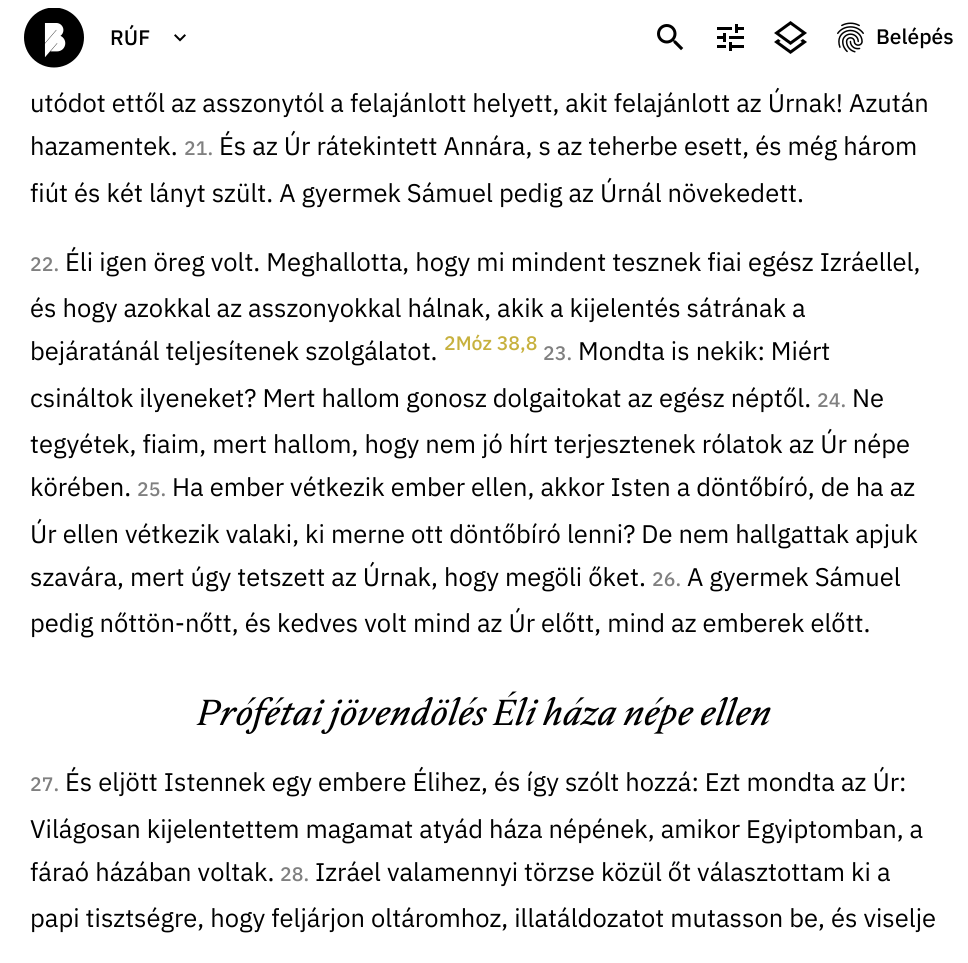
#include <cairo.h>
#include <math.h>
#include <stddef.h>

typedef struct { const char *family; double size; int italic, bold; unsigned color; } style_t;
static cairo_t *ctx;

static void ink(unsigned color) {
    cairo_set_source_rgb(ctx, (color >> 16) / 255.0, (color >> 8 & 255) / 255.0, (color & 255) / 255.0);
}

static void write(double x, double y, const char *s, const style_t *st) {
    cairo_select_font_face(ctx, st->family, st->italic ? CAIRO_FONT_SLANT_ITALIC : CAIRO_FONT_SLANT_NORMAL,
        st->bold ? CAIRO_FONT_WEIGHT_BOLD : CAIRO_FONT_WEIGHT_NORMAL);
    cairo_set_font_size(ctx, st->size);
    ink(st->color);
    cairo_move_to(ctx, x, y);
    cairo_show_text(ctx, s);
}

static void paste(const char *path, double x, double y, double w, double h) {
    cairo_surface_t *image = cairo_image_surface_create_from_png(path);
    cairo_save(ctx);
    cairo_set_source_surface(ctx, image, x, y);
    cairo_rectangle(ctx, x, y, w, h);
    cairo_fill(ctx);
    cairo_restore(ctx);
    cairo_surface_destroy(image);
}

static const style_t s1 = {"IBM Plex Sans Medium", 21, 0, 0, 0x000000};
static const style_t s2 = {"IBM Plex Sans", 25.5, 0, 0, 0x000000};
static const style_t s3 = {"IBM Plex Sans Medium", 19.5, 0, 0, 0x808080};
static const style_t s4 = {"IBM Plex Sans Medium", 19.5, 0, 0, 0xc7b13e};
static const style_t s5 = {"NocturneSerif", 36, 1, 0, 0x000000};

int main(void) {
    cairo_surface_t *surface = cairo_image_surface_create(CAIRO_FORMAT_RGB24, 968, 963);
    ctx = cairo_create(surface);
    cairo_font_options_t *options = cairo_font_options_create();
    cairo_font_options_set_hint_metrics(options, CAIRO_HINT_METRICS_OFF);
    cairo_font_options_set_hint_style(options, CAIRO_HINT_STYLE_NONE);
    cairo_set_font_options(ctx, options);
    cairo_set_miter_limit(ctx, 4);
    ink(0xffffff);
    cairo_paint(ctx);
    paste("pic1.png", 24, 8, 60, 60);
    paste("pic2.png", 174, 34, 12, 8);
    write(110, 45, "RÚF", &s1);
    paste("pic3.png", 657, 24, 27, 27);
    paste("pic4.png", 717, 24, 27, 27);
    paste("pic5.png", 774, 21, 33, 33);
    paste("pic6.png", 837, 22, 27, 31);
    write(876, 44, "Belépés", &s1);
    write(30, 112, "utódot ettől az asszonytól a felajánlott helyett, akit felajánlott az Úrnak! Azután", &s2);
    write(30, 155, "hazamentek.", &s2);
    write(184, 155, "21.", &s3);
    write(219, 155, "És az Úr rátekintett Annára, s az teherbe esett, és még három", &s2);
    write(30, 202, "fiút és két lányt szült. A gyermek Sámuel pedig az Úrnál növekedett.", &s2);
    write(30, 271, "22.", &s3);
    write(65, 271, "Éli igen öreg volt. Meghallotta, hogy mi mindent tesznek fiai egész Izráellel,", &s2);
    write(30, 317, "és hogy azokkal az asszonyokkal hálnak, akik a kijelentés sátrának a", &s2);
    write(30, 360, "bejáratánál teljesítenek szolgálatot.", &s2);
    write(444, 350, "2Móz 38,8", &s4);
    write(543, 360, "23.", &s3);
    write(578, 360, "Mondta is nekik: Miért", &s2);
    write(30, 407, "csináltok ilyeneket? Mert hallom gonosz dolgaitokat az egész néptől.", &s2);
    write(817, 407, "24.", &s3);
    write(852, 407, "Ne", &s2);
    write(30, 453, "tegyétek, fiaim, mert hallom, hogy nem jó hírt terjesztenek rólatok az Úr népe", &s2);
    write(30, 496, "körében.", &s2);
    write(137, 496, "25.", &s3);
    write(172, 496, "Ha ember vétkezik ember ellen, akkor Isten a döntőbíró, de ha az", &s2);
    write(30, 543, "Úr ellen vétkezik valaki, ki merne ott döntőbíró lenni? De nem hallgattak apjuk", &s2);
    write(30, 586, "szavára, mert úgy tetszett az Úrnak, hogy megöli őket.", &s2);
    write(652, 586, "26.", &s3);
    write(687, 586, "A gyermek Sámuel", &s2);
    write(30, 632, "pedig nőttön-nőtt, és kedves volt mind az Úr előtt, mind az emberek előtt.", &s2);
    write(197, 725, "Prófétai jövendölés Éli háza népe ellen", &s5);
    write(30, 791, "27.", &s3);
    write(65, 791, "És eljött Istennek egy embere Élihez, és így szólt hozzá: Ezt mondta az Úr:", &s2);
    write(30, 838, "Világosan kijelentettem magamat atyád háza népének, amikor Egyiptomban, a", &s2);
    write(30, 881, "fáraó házában voltak.", &s2);
    write(280, 881, "28.", &s3);
    write(315, 881, "Izráel valamennyi törzse közül őt választottam ki a", &s2);
    write(30, 927, "papi tisztségre, hogy feljárjon oltáromhoz, illatáldozatot mutasson be, és viselje", &s2);
    cairo_surface_write_to_png(surface, "screenshot.png");
    cairo_font_options_destroy(options);
    cairo_destroy(ctx);
    cairo_surface_destroy(surface);
    return 0;
}
